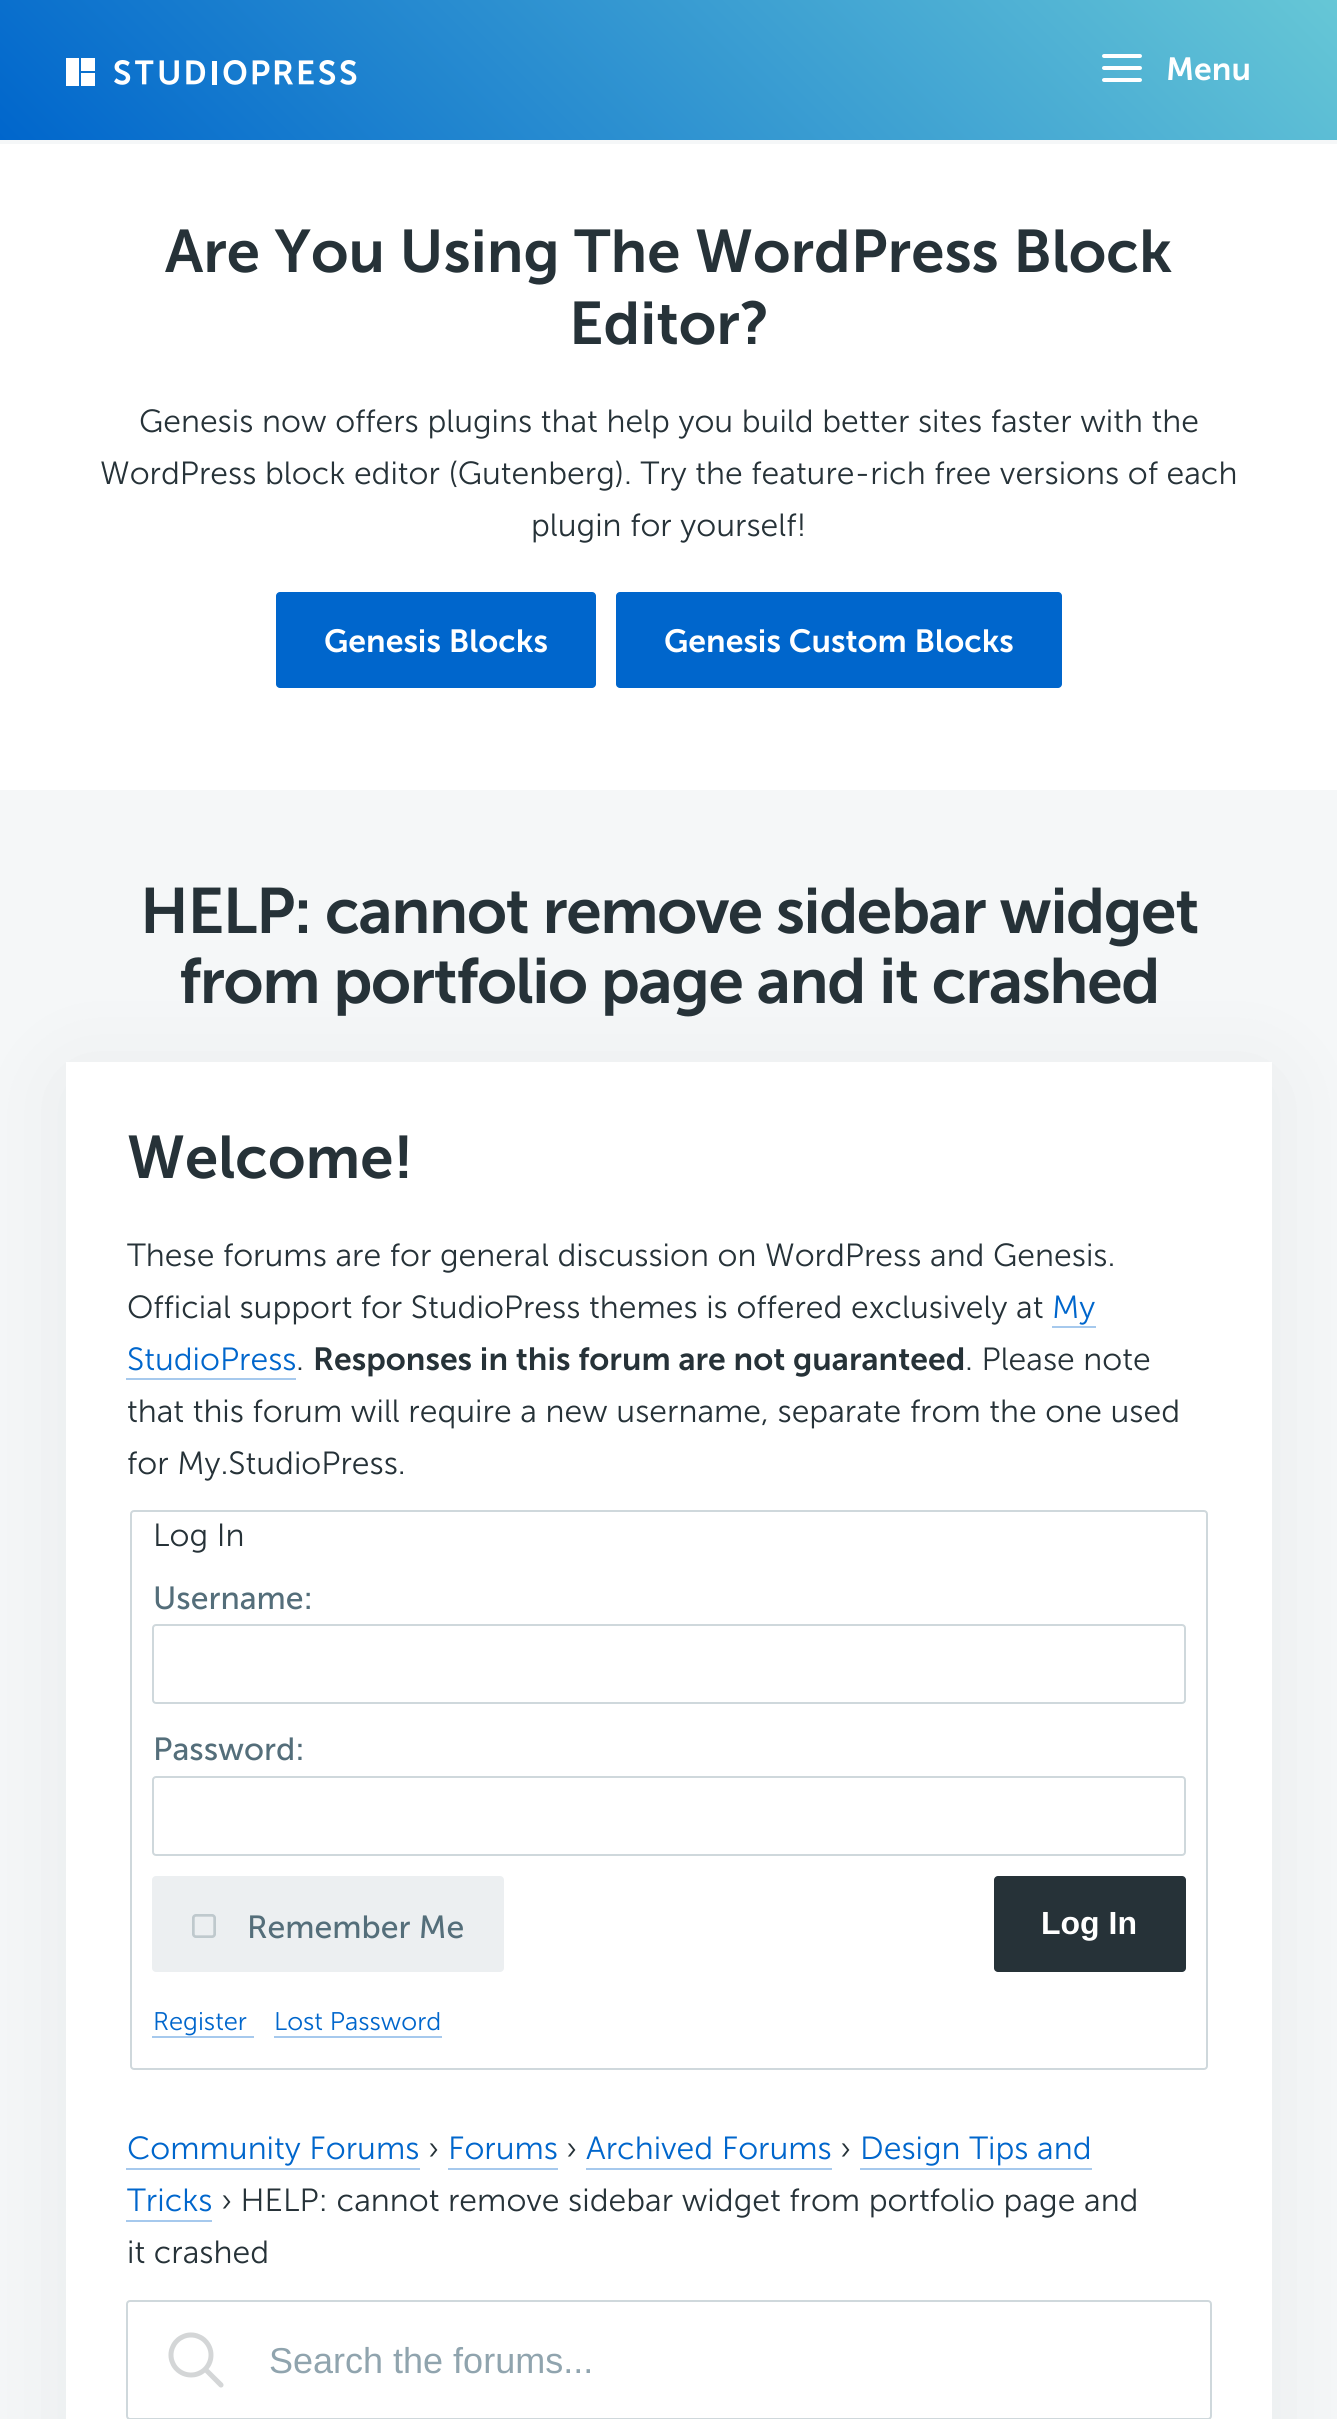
#include <cairo.h>
#include <math.h>
#include <stddef.h>

typedef struct { const char *family; double size; int italic, bold; unsigned color; } style_t;
static cairo_t *ctx;

static void ink(unsigned color) {
    cairo_set_source_rgb(ctx, (color >> 16) / 255.0, (color >> 8 & 255) / 255.0, (color & 255) / 255.0);
}

static void write(double x, double y, const char *s, const style_t *st) {
    cairo_select_font_face(ctx, st->family, st->italic ? CAIRO_FONT_SLANT_ITALIC : CAIRO_FONT_SLANT_NORMAL,
        st->bold ? CAIRO_FONT_WEIGHT_BOLD : CAIRO_FONT_WEIGHT_NORMAL);
    cairo_set_font_size(ctx, st->size);
    ink(st->color);
    cairo_move_to(ctx, x, y);
    cairo_show_text(ctx, s);
}

static void write_spaced(double x, double y, const char *s, double letter, double word) {
    cairo_move_to(ctx, x, y);
    while (*s) {
        char ch[5] = {0};
        int n = 0;
        do ch[n++] = *s++; while ((*s & 0xC0) == 0x80);
        cairo_show_text(ctx, ch);
        cairo_rel_move_to(ctx, letter + word * (*ch == ' '), 0);
    }
}

static void block(double x, double y, double w, double h, unsigned color) {
    ink(color);
    cairo_rectangle(ctx, x, y, w, h);
    cairo_fill(ctx);
}

static void round_path(double x, double y, double w, double h, double r) {
    cairo_new_sub_path(ctx);
    cairo_arc(ctx, x + w - r, y + h - r, r, 0, M_PI / 2);
    cairo_arc(ctx, x + r, y + h - r, r, M_PI / 2, M_PI);
    cairo_arc(ctx, x + r, y + r, r, M_PI, 1.5 * M_PI);
    cairo_arc(ctx, x + w - r, y + r, r, 1.5 * M_PI, 2 * M_PI);
    cairo_close_path(ctx);
}

static void blur_box(double x, double y, double w, double h, double r, double blur, double alpha) {
    cairo_push_group_with_content(ctx, CAIRO_CONTENT_ALPHA);
    cairo_set_operator(ctx, CAIRO_OPERATOR_SOURCE);
    for (int i = 15; i >= -15 && fmin(w, h) + blur * i / 3 > 0; i -= 2) {
        double e = blur * i / 6;
        cairo_set_source_rgba(ctx, 0, 0, 0, alpha * erfc((i - 1) / 8.5) / 2);
        round_path(x - e, y - e, w + 2 * e, h + 2 * e, fmax(0, fmin(r + e + blur * .6, fmin(w, h) / 2 + e)));
        cairo_fill(ctx);
    }
    cairo_pattern_t *soft = cairo_pop_group(ctx);
    cairo_mask(ctx, soft);
    cairo_pattern_destroy(soft);
}

static void paste(const char *path, double x, double y, double w, double h) {
    cairo_surface_t *image = cairo_image_surface_create_from_png(path);
    cairo_save(ctx);
    cairo_set_source_surface(ctx, image, x, y);
    cairo_rectangle(ctx, x, y, w, h);
    cairo_fill(ctx);
    cairo_restore(ctx);
    cairo_surface_destroy(image);
}

static const style_t s1 = {"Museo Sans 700 SemiBold", 32, 0, 0, 0xffffff};
static const style_t s2 = {"Museo Sans 700 SemiBold", 60, 0, 0, 0x263238};
static const style_t s3 = {"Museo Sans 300 Light", 32, 0, 0, 0x263238};
static const style_t s4 = {"Museo Sans 300 Light", 32, 0, 0, 0x0066cc};
static const style_t s5 = {"Museo Sans 700 SemiBold", 32, 0, 0, 0x263238};
static const style_t s6 = {"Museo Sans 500", 32, 0, 0, 0x546e7a};
static const style_t s7 = {"Liberation Sans", 32, 0, 1, 0xffffff};
static const style_t s8 = {"Museo Sans 300 Light", 25.5, 0, 0, 0x0066cc};
static const style_t s9 = {"Liberation Sans", 36, 0, 0, 0x90a4ae};

int main(void) {
    cairo_surface_t *surface = cairo_image_surface_create(CAIRO_FORMAT_RGB24, 1337, 2419);
    ctx = cairo_create(surface);
    cairo_font_options_t *options = cairo_font_options_create();
    cairo_font_options_set_hint_metrics(options, CAIRO_HINT_METRICS_OFF);
    cairo_font_options_set_hint_style(options, CAIRO_HINT_STYLE_NONE);
    cairo_set_font_options(ctx, options);
    cairo_set_miter_limit(ctx, 4);
    cairo_pattern_t *gradient;
    ink(0xf5f7f8);
    cairo_paint(ctx);
    gradient = cairo_pattern_create_linear(300, 440, 1039, -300);
    cairo_pattern_add_color_stop_rgba(gradient, 0, 0, 0.4, 0.8, 1);
    cairo_pattern_add_color_stop_rgba(gradient, 1, 0.4, 0.78, 0.839, 1);
    cairo_set_source(ctx, gradient);
    cairo_pattern_destroy(gradient);
    cairo_rectangle(ctx, 0, 0, 1337, 140);
    cairo_fill(ctx);
    paste("pic1.png", 66, 58, 291, 28);
    paste("pic2.png", 1102, 54, 40, 28);
    write(1166, 80, "Menu", &s1);
    block(0, 144, 1337, 646, 0xffffff);
    write(165, 272, "Are You Using The WordPress Block", &s2);
    write(569, 344, "Editor?", &s2);
    write(139, 432, "Genesis now offers plugins that help you build better sites faster with the", &s3);
    write(100, 484, "WordPress block editor (Gutenberg). Try the feature-rich free versions of each", &s3);
    write(531, 536, "plugin for yourself!", &s3);
    ink(0x0066cc);
    round_path(276, 592, 320, 96, 4);
    cairo_fill(ctx);
    write(324, 652, "Genesis Blocks", &s1);
    ink(0x0066cc);
    round_path(616, 592, 446, 96, 4);
    cairo_fill(ctx);
    write(664, 652, "Genesis Custom Blocks", &s1);
    ink(0x263238);
    blur_box(66, 1076, 1206, 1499, 6, 50, 0.07);
    cairo_set_font_size(ctx, 64);
    ink(0x263238);
    write_spaced(140, 933, "HELP: cannot remove sidebar widget", -1.4, 0);
    write_spaced(179, 1003, "from portfolio page and it crashed", -1.4, 0);
    block(66, 1062, 1206, 1357, 0xffffff);
    write(127, 1178, "Welcome!", &s2);
    write(127, 1266, "These forums are for general discussion on WordPress and Genesis.", &s3);
    write(127, 1318, "Official support for StudioPress themes is offered exclusively at", &s3);
    write(1052, 1318, "My", &s4);
    block(1052, 1326, 44, 2, 0xa6c9ed);
    write(127, 1370, "StudioPress", &s4);
    block(126, 1378, 170, 2, 0xa6c9ed);
    write(296, 1370, ".", &s3);
    write(313, 1370, "Responses in this forum are not guaranteed", &s5);
    write(965, 1370, ". Please note", &s3);
    write(127, 1422, "that this forum will require a new username, separate from the one used", &s3);
    write(127, 1474, "for My.StudioPress.", &s3);
    round_path(131, 1511, 1076, 558, 3);
    ink(0xcfd8dc);
    cairo_stroke(ctx);
    write(153, 1546, "Log In", &s3);
    write(153, 1609, "Username:", &s6);
    round_path(153, 1625, 1032, 78, 3);
    ink(0xcfd8dc);
    cairo_stroke(ctx);
    write(153, 1760, "Password:", &s6);
    round_path(153, 1777, 1032, 78, 3);
    ink(0xcfd8dc);
    cairo_stroke(ctx);
    ink(0xeceff1);
    round_path(152, 1876, 352, 96, 4);
    cairo_fill(ctx);
    paste("pic3.png", 192, 1914, 24, 24);
    write(247, 1938, "Remember Me", &s6);
    ink(0x263238);
    round_path(994, 1876, 192, 96, 4);
    cairo_fill(ctx);
    write(1041, 1934, "Log In", &s7);
    write(153, 2030, "Register", &s8);
    block(152, 2036, 102, 2, 0xa6c9ed);
    write(274, 2030, "Lost Password", &s8);
    block(274, 2036, 168, 2, 0xa6c9ed);
    write(127, 2159, "Community Forums", &s4);
    block(126, 2168, 294, 2, 0xa6c9ed);
    write(428, 2159, "›", &s3);
    write(448, 2159, "Forums", &s4);
    block(448, 2168, 110, 2, 0xa6c9ed);
    write(566, 2159, "›", &s3);
    write(586, 2159, "Archived Forums", &s4);
    block(586, 2168, 246, 2, 0xa6c9ed);
    write(840, 2159, "›", &s3);
    write(860, 2159, "Design Tips and", &s4);
    block(860, 2168, 232, 2, 0xa6c9ed);
    write(127, 2211, "Tricks", &s4);
    block(126, 2220, 86, 2, 0xa6c9ed);
    write(221, 2211, "› HELP: cannot remove sidebar widget from portfolio page and", &s3);
    write(127, 2263, "it crashed", &s3);
    round_path(127, 2301, 1084, 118, 3);
    ink(0xcfd8dc);
    cairo_stroke(ctx);
    paste("pic4.png", 168, 2332, 56, 56);
    write(269, 2373, "Search the forums...", &s9);
    cairo_surface_write_to_png(surface, "screenshot.png");
    cairo_font_options_destroy(options);
    cairo_destroy(ctx);
    cairo_surface_destroy(surface);
    return 0;
}
